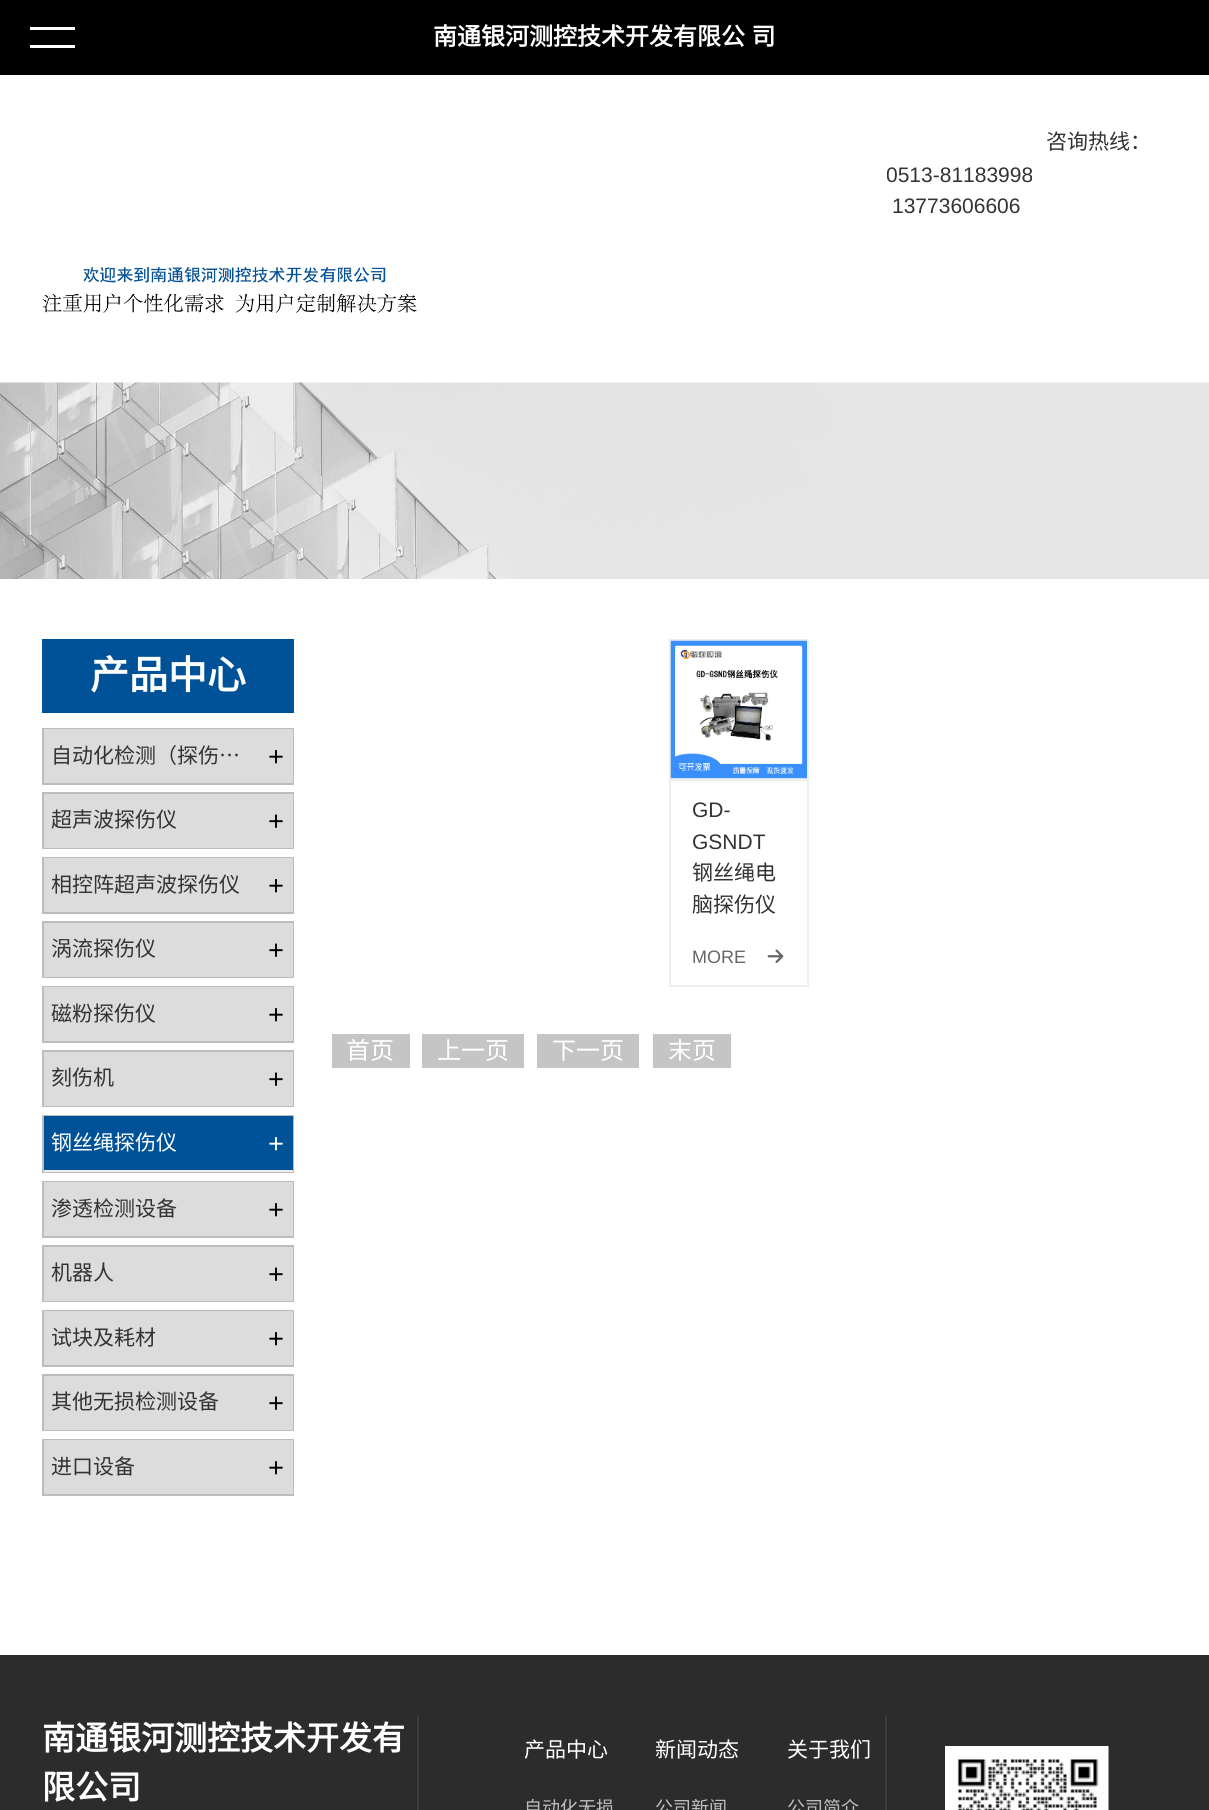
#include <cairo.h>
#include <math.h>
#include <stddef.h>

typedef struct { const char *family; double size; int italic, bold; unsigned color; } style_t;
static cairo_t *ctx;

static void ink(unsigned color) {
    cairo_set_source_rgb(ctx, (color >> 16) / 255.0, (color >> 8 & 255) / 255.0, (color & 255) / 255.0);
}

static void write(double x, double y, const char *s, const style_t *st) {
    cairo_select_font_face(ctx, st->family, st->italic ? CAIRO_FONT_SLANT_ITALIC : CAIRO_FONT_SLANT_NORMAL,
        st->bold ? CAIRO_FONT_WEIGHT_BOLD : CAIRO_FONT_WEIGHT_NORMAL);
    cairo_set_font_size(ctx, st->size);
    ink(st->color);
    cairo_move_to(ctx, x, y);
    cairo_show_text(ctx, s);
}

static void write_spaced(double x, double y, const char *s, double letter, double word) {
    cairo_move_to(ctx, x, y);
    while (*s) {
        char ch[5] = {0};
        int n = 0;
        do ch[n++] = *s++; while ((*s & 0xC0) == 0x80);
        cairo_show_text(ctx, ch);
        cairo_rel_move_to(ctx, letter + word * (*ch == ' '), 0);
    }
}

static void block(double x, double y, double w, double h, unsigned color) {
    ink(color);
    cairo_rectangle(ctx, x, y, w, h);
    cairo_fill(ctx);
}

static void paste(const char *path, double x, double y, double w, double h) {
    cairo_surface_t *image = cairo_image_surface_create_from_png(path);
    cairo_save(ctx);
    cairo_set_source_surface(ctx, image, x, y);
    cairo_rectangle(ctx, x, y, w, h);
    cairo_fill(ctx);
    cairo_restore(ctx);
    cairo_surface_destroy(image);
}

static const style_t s1 = {"Noto Sans CJK SC", 21, 0, 0, 0x333333};
static const style_t s2 = {"Liberation Sans", 21, 0, 0, 0x333333};
static const style_t s3 = {"Noto Sans CJK SC", 39, 0, 1, 0xffffff};
static const style_t s4 = {"Noto Sans CJK SC", 21, 0, 0, 0xffffff};
static const style_t s5 = {"Liberation Sans", 18, 0, 0, 0x666666};
static const style_t s6 = {"Noto Sans CJK SC", 24, 0, 0, 0xffffff};
static const style_t s7 = {"Noto Sans CJK SC", 33, 0, 1, 0xffffff};
static const style_t s8 = {"Noto Sans CJK SC", 18, 0, 0, 0xbfbfbf};

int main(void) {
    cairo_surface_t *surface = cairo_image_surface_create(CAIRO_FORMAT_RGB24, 1209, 1810);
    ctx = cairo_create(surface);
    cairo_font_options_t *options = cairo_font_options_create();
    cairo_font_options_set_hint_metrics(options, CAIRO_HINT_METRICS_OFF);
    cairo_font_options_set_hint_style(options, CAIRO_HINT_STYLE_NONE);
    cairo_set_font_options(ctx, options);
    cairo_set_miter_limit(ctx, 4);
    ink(0xffffff);
    cairo_paint(ctx);
    block(0, 0, 1209, 75, 0x000000);
    block(30, 27, 45, 3, 0xffffff);
    block(30, 45, 45, 3, 0xffffff);
    cairo_select_font_face(ctx, "Noto Sans CJK SC", CAIRO_FONT_SLANT_NORMAL, CAIRO_FONT_WEIGHT_BOLD);
    cairo_set_font_size(ctx, 24);
    write_spaced(433, 45, "南通银河测控技术开发有限公 司", 0, 1);
    write(1046, 149, "咨询热线：", &s1);
    cairo_save(ctx);
    cairo_rectangle(ctx, 887, 87, 280, 135);
    cairo_clip(ctx);
    write(886, 182, "0513-81183998", &s2);
    cairo_restore(ctx);
    write(892, 213, "13773606606", &s2);
    paste("pic1.png", 42, 267, 375, 46);
    paste("pic2.png", 0, 382, 1209, 197);
    block(42, 639, 252, 74, 0x005298);
    write(90, 689, "产品中心", &s3);
    cairo_rectangle(ctx, 43, 729, 250, 55);
    ink(0xbcbcbc);
    cairo_stroke(ctx);
    block(44, 729, 249, 54, 0xdcdcdc);
    write(51, 763, "自动化检测（探伤…", &s1);
    paste("pic3.png", 269, 750, 14, 14);
    cairo_rectangle(ctx, 43, 793, 250, 55);
    ink(0xbcbcbc);
    cairo_stroke(ctx);
    block(44, 794, 249, 54, 0xdcdcdc);
    write(51, 827, "超声波探伤仪", &s1);
    paste("pic4.png", 269, 814, 14, 14);
    cairo_rectangle(ctx, 43, 858, 250, 55);
    ink(0xbcbcbc);
    cairo_stroke(ctx);
    block(44, 858, 249, 54, 0xdcdcdc);
    write(51, 892, "相控阵超声波探伤仪", &s1);
    paste("pic3.png", 269, 879, 14, 14);
    cairo_rectangle(ctx, 43, 922, 250, 55);
    ink(0xbcbcbc);
    cairo_stroke(ctx);
    block(44, 923, 249, 54, 0xdcdcdc);
    write(51, 956, "涡流探伤仪", &s1);
    paste("pic4.png", 269, 943, 14, 14);
    cairo_rectangle(ctx, 43, 987, 250, 55);
    ink(0xbcbcbc);
    cairo_stroke(ctx);
    block(44, 987, 249, 54, 0xdcdcdc);
    write(51, 1021, "磁粉探伤仪", &s1);
    paste("pic3.png", 269, 1008, 14, 14);
    cairo_rectangle(ctx, 43, 1051, 250, 55);
    ink(0xbcbcbc);
    cairo_stroke(ctx);
    block(44, 1052, 249, 54, 0xdcdcdc);
    write(51, 1085, "刻伤机", &s1);
    paste("pic4.png", 269, 1072, 14, 14);
    cairo_rectangle(ctx, 43, 1116, 250, 56);
    ink(0xbcbcbc);
    cairo_stroke(ctx);
    block(44, 1116, 249, 54, 0x005298);
    write(51, 1150, "钢丝绳探伤仪", &s4);
    paste("pic5.png", 269, 1137, 14, 14);
    block(44, 1170, 249, 2, 0xeeeeee);
    cairo_rectangle(ctx, 43, 1182, 250, 55);
    ink(0xbcbcbc);
    cairo_stroke(ctx);
    block(44, 1182, 249, 54, 0xdcdcdc);
    write(51, 1216, "渗透检测设备", &s1);
    paste("pic3.png", 269, 1203, 14, 14);
    cairo_rectangle(ctx, 43, 1246, 250, 55);
    ink(0xbcbcbc);
    cairo_stroke(ctx);
    block(44, 1247, 249, 54, 0xdcdcdc);
    write(51, 1280, "机器人", &s1);
    paste("pic4.png", 269, 1267, 14, 14);
    cairo_rectangle(ctx, 43, 1311, 250, 55);
    ink(0xbcbcbc);
    cairo_stroke(ctx);
    block(44, 1311, 249, 54, 0xdcdcdc);
    write(51, 1345, "试块及耗材", &s1);
    paste("pic3.png", 269, 1332, 14, 14);
    cairo_rectangle(ctx, 43, 1375, 250, 55);
    ink(0xbcbcbc);
    cairo_stroke(ctx);
    block(44, 1376, 249, 54, 0xdcdcdc);
    write(51, 1409, "其他无损检测设备", &s1);
    paste("pic4.png", 269, 1396, 14, 14);
    cairo_rectangle(ctx, 43, 1440, 250, 55);
    ink(0xbcbcbc);
    cairo_stroke(ctx);
    block(44, 1440, 249, 54, 0xdcdcdc);
    write(51, 1474, "进口设备", &s1);
    paste("pic3.png", 269, 1461, 14, 14);
    block(669, 639, 140, 2, 0xeeeeee);
    block(807, 639, 2, 140, 0xeeeeee);
    block(669, 639, 2, 140, 0xeeeeee);
    paste("pic6.png", 670, 640, 137, 139);
    cairo_rectangle(ctx, 670, 780, 138, 206);
    cairo_stroke(ctx);
    write(692, 817, "GD-", &s2);
    write(692, 849, "GSNDT", &s2);
    write(692, 880, "钢丝绳电", &s1);
    write(692, 912, "脑探伤仪", &s1);
    write(692, 963, "MORE", &s5);
    paste("pic7.png", 767, 949, 17, 14);
    block(332, 1034, 78, 34, 0xc5c5c5);
    write(346, 1059, "首页", &s6);
    block(422, 1034, 102, 34, 0xc5c5c5);
    write(437, 1059, "上一页", &s6);
    block(537, 1034, 102, 34, 0xc5c5c5);
    write(552, 1059, "下一页", &s6);
    block(653, 1034, 78, 34, 0xc5c5c5);
    write(668, 1059, "末页", &s6);
    block(0, 1655, 1209, 155, 0x2c2c2c);
    write(42, 1750, "南通银河测控技术开发有", &s7);
    write(42, 1799, "限公司", &s7);
    block(885, 1715, 2, 95, 0x3d3d3d);
    block(417, 1715, 2, 95, 0x3d3d3d);
    write(524, 1757, "产品中心", &s4);
    write(524, 1814, "自动化无损", &s8);
    write(655, 1757, "新闻动态", &s4);
    write(655, 1814, "公司新闻", &s8);
    write(787, 1757, "关于我们", &s4);
    write(787, 1814, "公司简介", &s8);
    paste("pic8.png", 945, 1746, 164, 64);
    cairo_surface_write_to_png(surface, "screenshot.png");
    cairo_font_options_destroy(options);
    cairo_destroy(ctx);
    cairo_surface_destroy(surface);
    return 0;
}
